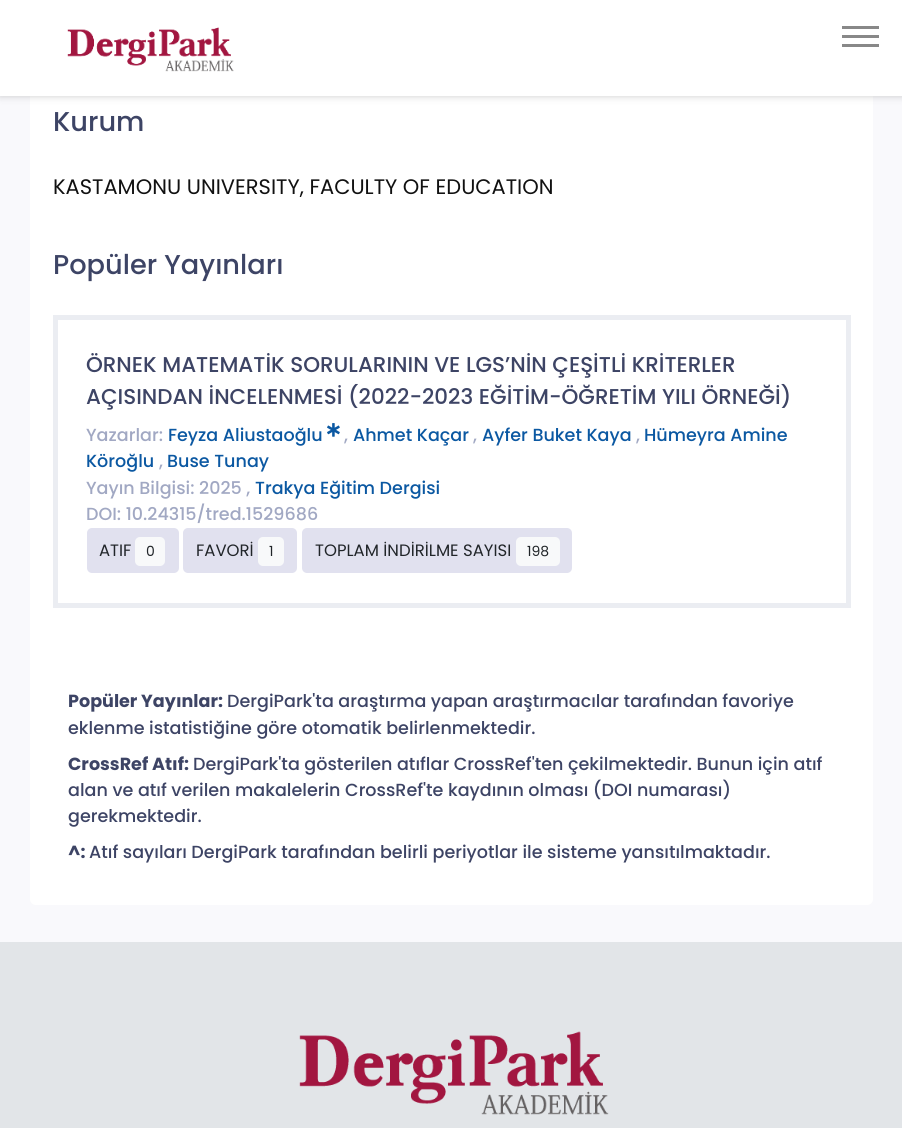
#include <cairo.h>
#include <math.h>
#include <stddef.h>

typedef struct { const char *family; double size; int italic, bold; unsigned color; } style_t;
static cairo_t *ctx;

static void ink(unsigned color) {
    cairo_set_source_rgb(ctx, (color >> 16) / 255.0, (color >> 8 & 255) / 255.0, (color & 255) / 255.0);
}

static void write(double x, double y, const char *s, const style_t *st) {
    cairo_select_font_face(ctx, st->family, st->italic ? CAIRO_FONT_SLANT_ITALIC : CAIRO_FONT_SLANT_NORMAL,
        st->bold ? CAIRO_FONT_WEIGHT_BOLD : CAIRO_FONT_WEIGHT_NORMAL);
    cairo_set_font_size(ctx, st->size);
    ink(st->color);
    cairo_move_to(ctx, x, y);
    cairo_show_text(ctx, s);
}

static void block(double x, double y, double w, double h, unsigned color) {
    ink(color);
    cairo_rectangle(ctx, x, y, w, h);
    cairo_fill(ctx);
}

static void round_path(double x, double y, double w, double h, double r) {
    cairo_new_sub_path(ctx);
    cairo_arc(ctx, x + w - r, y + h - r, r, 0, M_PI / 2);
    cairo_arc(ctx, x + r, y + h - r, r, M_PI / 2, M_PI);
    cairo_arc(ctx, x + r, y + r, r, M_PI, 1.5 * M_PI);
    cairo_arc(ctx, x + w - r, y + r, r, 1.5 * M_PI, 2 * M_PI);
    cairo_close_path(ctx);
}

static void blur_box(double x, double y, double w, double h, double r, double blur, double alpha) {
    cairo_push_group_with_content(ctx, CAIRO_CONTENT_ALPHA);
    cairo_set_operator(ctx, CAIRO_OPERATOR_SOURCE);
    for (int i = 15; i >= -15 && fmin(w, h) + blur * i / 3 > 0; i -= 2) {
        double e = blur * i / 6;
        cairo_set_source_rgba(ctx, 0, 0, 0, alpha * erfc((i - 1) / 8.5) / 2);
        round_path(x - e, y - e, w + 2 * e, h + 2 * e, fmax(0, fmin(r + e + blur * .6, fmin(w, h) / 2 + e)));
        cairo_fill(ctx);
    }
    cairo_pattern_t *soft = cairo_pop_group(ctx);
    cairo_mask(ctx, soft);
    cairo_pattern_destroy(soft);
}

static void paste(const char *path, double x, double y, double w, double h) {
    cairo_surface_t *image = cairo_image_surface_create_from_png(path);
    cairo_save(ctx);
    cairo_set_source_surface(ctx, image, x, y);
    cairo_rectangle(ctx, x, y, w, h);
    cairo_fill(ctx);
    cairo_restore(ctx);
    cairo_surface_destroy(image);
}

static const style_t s1 = {"Poppins Medium", 27.25, 0, 0, 0x3d4465};
static const style_t s2 = {"Poppins", 21, 0, 0, 0x111111};
static const style_t s3 = {"Poppins Medium", 21.45, 0, 0, 0x3d4465};
static const style_t s4 = {"Poppins Medium", 17.55, 0, 0, 0xa1a8c3};
static const style_t s5 = {"Poppins Medium", 17.55, 0, 0, 0x0b58a2};
static const style_t s6 = {"Poppins", 16.5, 0, 0, 0x212529};
static const style_t s7 = {"Poppins", 14, 0, 0, 0x212529};
static const style_t s8 = {"Poppins", 17.55, 0, 1, 0x3d4465};
static const style_t s9 = {"Poppins Medium", 17.55, 0, 0, 0x3d4465};

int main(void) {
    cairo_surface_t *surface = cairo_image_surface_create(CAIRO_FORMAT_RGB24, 902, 1128);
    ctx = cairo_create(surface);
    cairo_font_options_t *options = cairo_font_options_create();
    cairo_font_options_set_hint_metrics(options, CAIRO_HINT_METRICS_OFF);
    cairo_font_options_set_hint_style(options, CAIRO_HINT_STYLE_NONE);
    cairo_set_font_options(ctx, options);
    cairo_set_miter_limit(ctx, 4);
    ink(0xf9f9fc);
    cairo_paint(ctx);
    ink(0xffffff);
    round_path(30, -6, 843, 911, 6);
    cairo_fill(ctx);
    ink(0x000000);
    blur_box(0, 0, 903, 96, 0, 4, 0.2);
    block(0, 0, 902, 96, 0xffffff);
    paste("pic1.png", 67, 27, 167, 45);
    block(842, 26, 37, 3, 0x888888);
    block(842, 35, 37, 3, 0x888888);
    block(842, 44, 37, 3, 0x888888);
    write(53, 131, "Kurum", &s1);
    write(53, 194, "KASTAMONU UNIVERSITY, FACULTY OF EDUCATION", &s2);
    write(53, 274, "Popüler Yayınları", &s1);
    cairo_rectangle(ctx, 55.5, 317.5, 793, 288);
    ink(0xebedf2);
    cairo_set_line_width(ctx, 5);
    cairo_stroke(ctx);
    write(86, 372, "ÖRNEK MATEMATİK SORULARININ VE LGS’NİN ÇEŞİTLİ KRİTERLER", &s3);
    write(86, 404, "AÇISINDAN İNCELENMESİ (2022-2023 EĞİTİM-ÖĞRETİM YILI ÖRNEĞİ)", &s3);
    write(86, 441, "Yazarlar:", &s4);
    write(168, 441, "Feyza Aliustaoğlu", &s5);
    paste("pic2.png", 327, 423, 13, 14);
    write(344, 441, ",", &s4);
    write(353, 441, "Ahmet Kaçar", &s5);
    write(473, 441, ",", &s4);
    write(482, 441, "Ayfer Buket Kaya", &s5);
    write(636, 441, ",", &s4);
    write(644, 441, "Hümeyra Amine", &s5);
    write(86, 467, "Köroğlu", &s5);
    write(159, 467, ",", &s4);
    write(167, 467, "Buse Tunay", &s5);
    write(86, 494, "Yayın Bilgisi: 2025 ,", &s4);
    write(255, 494, "Trakya Eğitim Dergisi", &s5);
    write(86, 520, "DOI: 10.24315/tred.1529686", &s4);
    ink(0xe1e1ef);
    round_path(87, 528, 92, 45, 5);
    cairo_fill(ctx);
    write(99, 556, "ATIF", &s6);
    ink(0xf8f9fa);
    round_path(135, 537, 30, 29, 5);
    cairo_fill(ctx);
    write(146, 556, "0", &s7);
    ink(0xe1e1ef);
    round_path(183, 528, 114, 45, 5);
    cairo_fill(ctx);
    write(196, 556, "FAVORİ", &s6);
    ink(0xf8f9fa);
    round_path(258, 537, 26, 29, 5);
    cairo_fill(ctx);
    write(269, 556, "1", &s7);
    ink(0xe1e1ef);
    round_path(302, 528, 270, 45, 5);
    cairo_fill(ctx);
    write(315, 556, "TOPLAM İNDİRİLME SAYISI", &s6);
    ink(0xf8f9fa);
    round_path(516, 537, 44, 29, 5);
    cairo_fill(ctx);
    write(527, 556, "198", &s7);
    write(68, 707, "Popüler Yayınlar:", &s8);
    write(227, 707, "DergiPark'ta araştırma yapan araştırmacılar tarafından favoriye", &s9);
    write(68, 734, "eklenme istatistiğine göre otomatik belirlenmektedir.", &s9);
    write(68, 770, "CrossRef Atıf:", &s8);
    write(193, 770, "DergiPark'ta gösterilen atıflar CrossRef'ten çekilmektedir. Bunun için atıf", &s9);
    write(68, 796, "alan ve atıf verilen makalelerin CrossRef'te kaydının olması (DOI numarası)", &s9);
    write(68, 822, "gerekmektedir.", &s9);
    write(68, 858, "^:", &s8);
    write(89, 858, "Atıf sayıları DergiPark tarafından belirli periyotlar ile sisteme yansıtılmaktadır.", &s9);
    block(0, 942, 902, 186, 0xe2e5e8);
    paste("pic3.png", 299, 1031, 310, 84);
    cairo_surface_write_to_png(surface, "screenshot.png");
    cairo_font_options_destroy(options);
    cairo_destroy(ctx);
    cairo_surface_destroy(surface);
    return 0;
}
